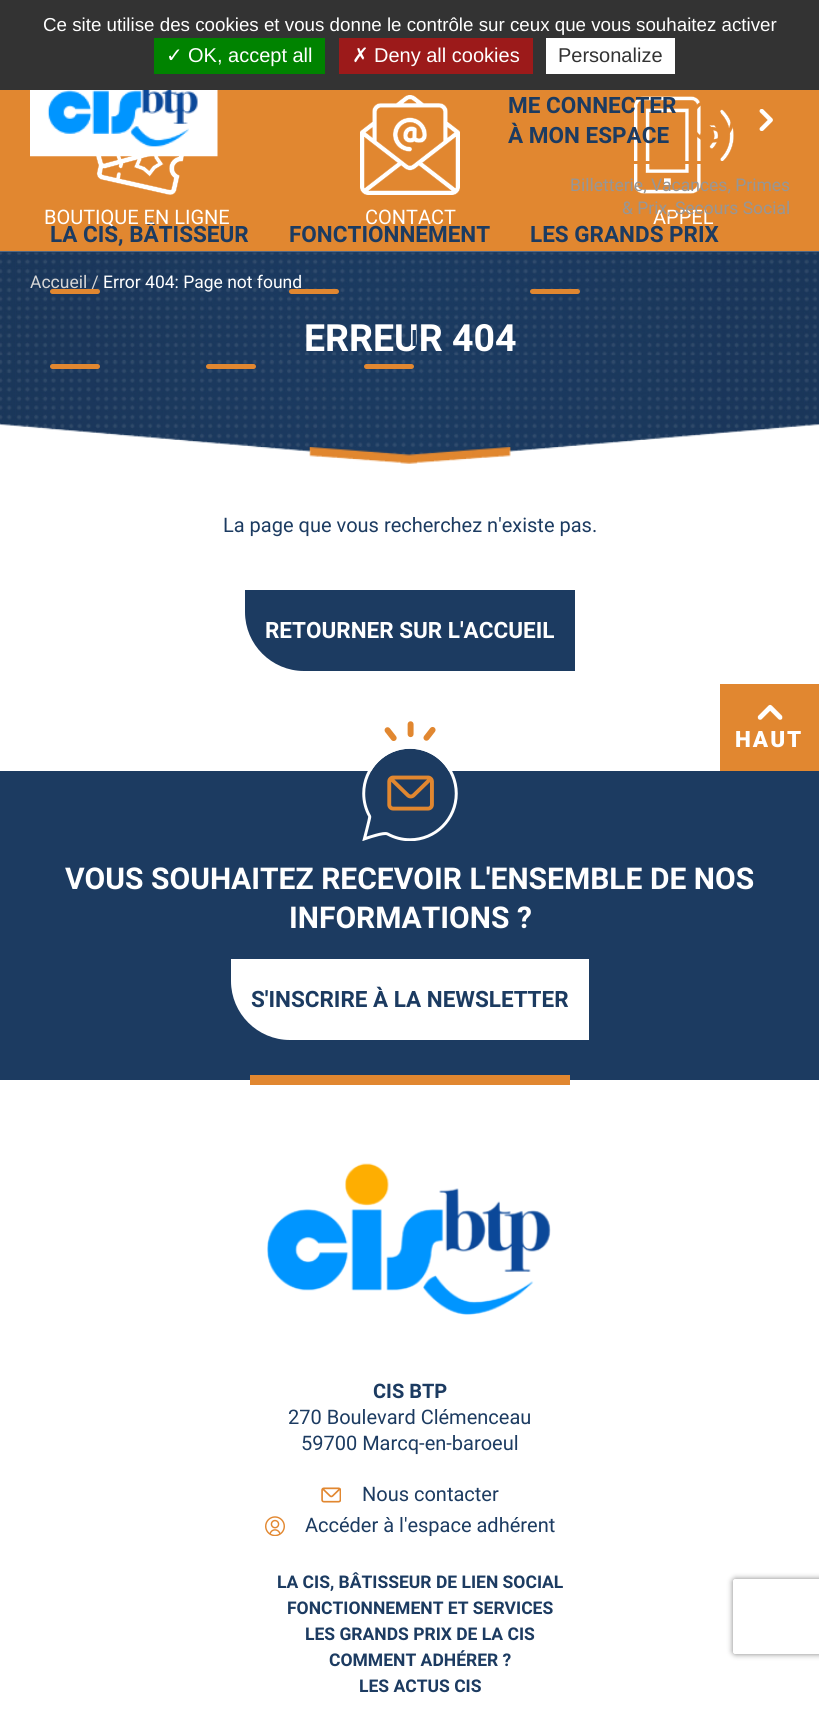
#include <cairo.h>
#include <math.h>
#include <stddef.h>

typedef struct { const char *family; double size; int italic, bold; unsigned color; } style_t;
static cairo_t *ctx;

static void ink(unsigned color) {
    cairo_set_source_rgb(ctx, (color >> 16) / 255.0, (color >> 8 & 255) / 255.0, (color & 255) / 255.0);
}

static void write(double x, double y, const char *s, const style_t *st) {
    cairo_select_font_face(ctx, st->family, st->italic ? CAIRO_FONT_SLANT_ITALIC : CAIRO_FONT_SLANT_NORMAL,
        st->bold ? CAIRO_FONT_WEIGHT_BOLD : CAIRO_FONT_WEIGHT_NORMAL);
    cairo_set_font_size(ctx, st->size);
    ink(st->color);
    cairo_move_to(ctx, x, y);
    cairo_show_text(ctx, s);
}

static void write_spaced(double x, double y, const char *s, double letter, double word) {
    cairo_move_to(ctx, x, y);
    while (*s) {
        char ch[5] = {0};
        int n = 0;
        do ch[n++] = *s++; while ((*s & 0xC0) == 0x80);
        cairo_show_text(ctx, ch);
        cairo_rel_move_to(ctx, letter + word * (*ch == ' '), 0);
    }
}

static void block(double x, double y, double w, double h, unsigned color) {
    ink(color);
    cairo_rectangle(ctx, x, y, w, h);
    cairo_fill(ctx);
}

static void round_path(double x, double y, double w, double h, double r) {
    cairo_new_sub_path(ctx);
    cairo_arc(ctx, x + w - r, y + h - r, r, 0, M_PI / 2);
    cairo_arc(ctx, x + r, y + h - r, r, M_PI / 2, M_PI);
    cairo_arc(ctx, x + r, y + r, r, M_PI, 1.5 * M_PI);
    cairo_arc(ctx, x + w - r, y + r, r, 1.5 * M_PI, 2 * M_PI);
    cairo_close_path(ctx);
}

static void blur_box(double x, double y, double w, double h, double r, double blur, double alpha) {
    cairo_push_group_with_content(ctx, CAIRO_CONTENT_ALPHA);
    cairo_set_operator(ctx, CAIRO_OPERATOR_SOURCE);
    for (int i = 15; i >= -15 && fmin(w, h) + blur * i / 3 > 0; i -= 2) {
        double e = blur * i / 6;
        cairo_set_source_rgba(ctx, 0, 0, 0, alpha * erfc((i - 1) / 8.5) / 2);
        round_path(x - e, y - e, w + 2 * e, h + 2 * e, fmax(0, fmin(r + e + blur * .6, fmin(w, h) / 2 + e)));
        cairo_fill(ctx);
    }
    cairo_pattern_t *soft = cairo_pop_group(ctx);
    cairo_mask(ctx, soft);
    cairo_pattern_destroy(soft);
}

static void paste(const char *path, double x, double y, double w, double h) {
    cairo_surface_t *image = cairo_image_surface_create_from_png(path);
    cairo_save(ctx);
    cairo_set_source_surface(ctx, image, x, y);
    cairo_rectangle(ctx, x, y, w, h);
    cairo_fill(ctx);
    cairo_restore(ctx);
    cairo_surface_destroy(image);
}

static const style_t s1 = {"Liberation Sans", 18.75, 0, 0, 0xffffff};
static const style_t s2 = {"DejaVu Sans", 20, 0, 0, 0xffffff};
static const style_t s3 = {"Liberation Sans", 20, 0, 0, 0xffffff};
static const style_t s4 = {"Liberation Sans", 20, 0, 0, 0x333333};
static const style_t s5 = {"Roboto", 22.5, 0, 1, 0x1c3b61};
static const style_t s6 = {"Roboto", 17.5, 0, 0, 0x969696};
static const style_t s7 = {"Roboto", 20, 0, 0, 0xffffff};
static const style_t s8 = {"Roboto", 17.5, 0, 0, 0xd6d6d6};
static const style_t s9 = {"Roboto", 17.5, 0, 0, 0xffffff};
static const style_t s10 = {"Roboto", 37.5, 0, 1, 0xffffff};
static const style_t s11 = {"Roboto", 20, 0, 0, 0x1c3b61};
static const style_t s12 = {"Roboto", 22.5, 0, 1, 0xffffff};
static const style_t s13 = {"Roboto", 30, 0, 1, 0xffffff};
static const style_t s14 = {"Roboto", 20, 0, 1, 0x1c3b61};
static const style_t s15 = {"Roboto", 17.5, 0, 1, 0x1c3b61};

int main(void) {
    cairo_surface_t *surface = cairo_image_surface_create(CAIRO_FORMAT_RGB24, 819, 1721);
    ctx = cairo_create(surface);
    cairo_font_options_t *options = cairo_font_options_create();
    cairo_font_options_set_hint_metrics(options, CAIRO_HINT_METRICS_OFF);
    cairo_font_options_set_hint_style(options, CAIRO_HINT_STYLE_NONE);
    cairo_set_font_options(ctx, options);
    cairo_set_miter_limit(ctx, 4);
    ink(0xffffff);
    cairo_paint(ctx);
    block(0, 90, 819, 161, 0xe18730);
    paste("pic6.png", 634, 96, 100, 98);
    cairo_new_path(ctx);
    cairo_move_to(ctx, 466.5, 77.5);
    cairo_line_to(ctx, 788.5, 77.5);
    cairo_line_to(ctx, 788.5, 162.5);
    cairo_line_to(ctx, 515, 162.5);
    cairo_curve_to(ctx, 488, 162.5, 466.5, 141, 466.5, 114);
    cairo_close_path(ctx);
    cairo_set_line_width(ctx, 3);
    cairo_stroke(ctx);
    block(0, 0, 819, 90, 0x333333);
    write(43, 31, "Ce site utilise des cookies et vous donne le contrôle sur ceux que vous souhaitez activer", &s1);
    block(154, 38, 171, 36, 0x008300);
    write(166, 62, "✓", &s2);
    write(188, 62, "OK, accept all", &s3);
    block(339, 38, 194, 36, 0x9c1a1a);
    write(352, 62, "✗", &s2);
    write(374, 62, "Deny all cookies", &s3);
    block(546, 38, 129, 36, 0xffffff);
    write(558, 62, "Personalize", &s4);
    paste("pic4.png", 95, 156, 90, 39);
    paste("pic1.png", 30, 90, 188, 67);
    write(508, 113, "ME CONNECTER", &s5);
    paste("pic2.png", 696, 102, 37, 41);
    write(508, 143, "À MON ESPACE", &s5);
    paste("pic3.png", 759, 109, 14, 22);
    write(570, 191, "Billetterie, Vacances, Primes", &s6);
    write(653, 224, "APPEL", &s7);
    write(622, 214, "& Prix, Secours Social", &s6);
    write(50, 242, "LA CIS, BÂTISSEUR", &s5);
    paste("pic7.png", 0, 251, 819, 213);
    write(30, 288, "Accueil /", &s8);
    ink(0xe18730);
    round_path(50, 289, 50, 5, 2.5);
    cairo_fill(ctx);
    write(289, 242, "FONCTIONNEMENT", &s5);
    write(103, 288, "Error 404: Page not found", &s9);
    ink(0xe18730);
    round_path(289, 289, 50, 5, 2.5);
    cairo_fill(ctx);
    write(530, 242, "LES GRANDS PRIX", &s5);
    ink(0xe18730);
    round_path(530, 289, 50, 5, 2.5);
    cairo_fill(ctx);
    write(304, 351, "ERREUR 404", &s10);
    write(411, 346, "I", &s5);
    ink(0xe18730);
    round_path(364, 364, 50, 5, 2.5);
    cairo_fill(ctx);
    round_path(50, 364, 50, 5, 2.5);
    cairo_fill(ctx);
    round_path(206, 364, 50, 5, 2.5);
    cairo_fill(ctx);
    write(44, 224, "BOUTIQUE EN LIGNE", &s7);
    paste("pic5.png", 360, 95, 100, 100);
    write(365, 224, "CONTACT", &s7);
    write(223, 532, "La page que vous recherchez n'existe pas.", &s11);
    cairo_new_path(ctx);
    cairo_move_to(ctx, 245, 590);
    cairo_line_to(ctx, 575, 590);
    cairo_line_to(ctx, 575, 671);
    cairo_line_to(ctx, 304, 671);
    cairo_curve_to(ctx, 271.5, 671, 245, 644.5, 245, 612);
    cairo_close_path(ctx);
    cairo_fill(ctx);
    write(265, 638, "RETOURNER SUR L'ACCUEIL", &s12);
    block(720, 684, 99, 87, 0xe18730);
    paste("pic8.png", 757, 704, 26, 16);
    cairo_select_font_face(ctx, "Roboto Black", CAIRO_FONT_SLANT_NORMAL, CAIRO_FONT_WEIGHT_NORMAL);
    ink(0xffffff);
    write_spaced(735, 747, "HAUT", 2, 0);
    block(0, 771, 819, 309, 0x1c3b61);
    paste("pic9.png", 362, 721, 96, 120);
    write(65, 889, "VOUS SOUHAITEZ RECEVOIR L'ENSEMBLE DE NOS", &s13);
    write(289, 928, "INFORMATIONS ?", &s13);
    cairo_new_path(ctx);
    cairo_move_to(ctx, 231, 959);
    cairo_line_to(ctx, 589, 959);
    cairo_line_to(ctx, 589, 1040);
    cairo_line_to(ctx, 290, 1040);
    cairo_curve_to(ctx, 257.5, 1040, 231, 1013.5, 231, 981);
    cairo_close_path(ctx);
    cairo_fill(ctx);
    write(251, 1007, "S'INSCRIRE À LA NEWSLETTER", &s5);
    block(250, 1075, 320, 10, 0xe18730);
    paste("pic10.png", 267, 1163, 284, 152);
    write(373, 1398, "CIS BTP", &s14);
    write(288, 1424, "270 Boulevard Clémenceau", &s11);
    write(301, 1450, "59700 Marcq-en-baroeul", &s11);
    paste("pic11.png", 321, 1487, 20, 16);
    write(362, 1501, "Nous contacter", &s11);
    paste("pic12.png", 265, 1516, 20, 20);
    write(305, 1532, "Accéder à l'espace adhérent", &s11);
    write(277, 1588, "LA CIS, BÂTISSEUR DE LIEN SOCIAL", &s15);
    write(287, 1614, "FONCTIONNEMENT ET SERVICES", &s15);
    write(305, 1640, "LES GRANDS PRIX DE LA CIS", &s15);
    write(329, 1666, "COMMENT ADHÉRER ?", &s15);
    write(359, 1692, "LES ACTUS CIS", &s15);
    cairo_save(ctx);
    cairo_set_fill_rule(ctx, CAIRO_FILL_RULE_EVEN_ODD);
    cairo_new_path(ctx);
    cairo_move_to(ctx, 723, 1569);
    cairo_line_to(ctx, 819, 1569);
    cairo_line_to(ctx, 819, 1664);
    cairo_line_to(ctx, 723, 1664);
    cairo_close_path(ctx);
    cairo_move_to(ctx, 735.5, 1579);
    cairo_line_to(ctx, 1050.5, 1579);
    cairo_curve_to(ctx, 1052, 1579, 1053, 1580, 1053, 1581.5);
    cairo_line_to(ctx, 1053, 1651.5);
    cairo_curve_to(ctx, 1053, 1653, 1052, 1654, 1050.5, 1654);
    cairo_line_to(ctx, 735.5, 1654);
    cairo_curve_to(ctx, 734, 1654, 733, 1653, 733, 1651.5);
    cairo_line_to(ctx, 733, 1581.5);
    cairo_curve_to(ctx, 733, 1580, 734, 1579, 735.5, 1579);
    cairo_close_path(ctx);
    cairo_clip(ctx);
    ink(0x808080);
    blur_box(733, 1579, 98, 75, 2.5, 3, 1);
    cairo_restore(ctx);
    cairo_surface_write_to_png(surface, "screenshot.png");
    cairo_font_options_destroy(options);
    cairo_destroy(ctx);
    cairo_surface_destroy(surface);
    return 0;
}
